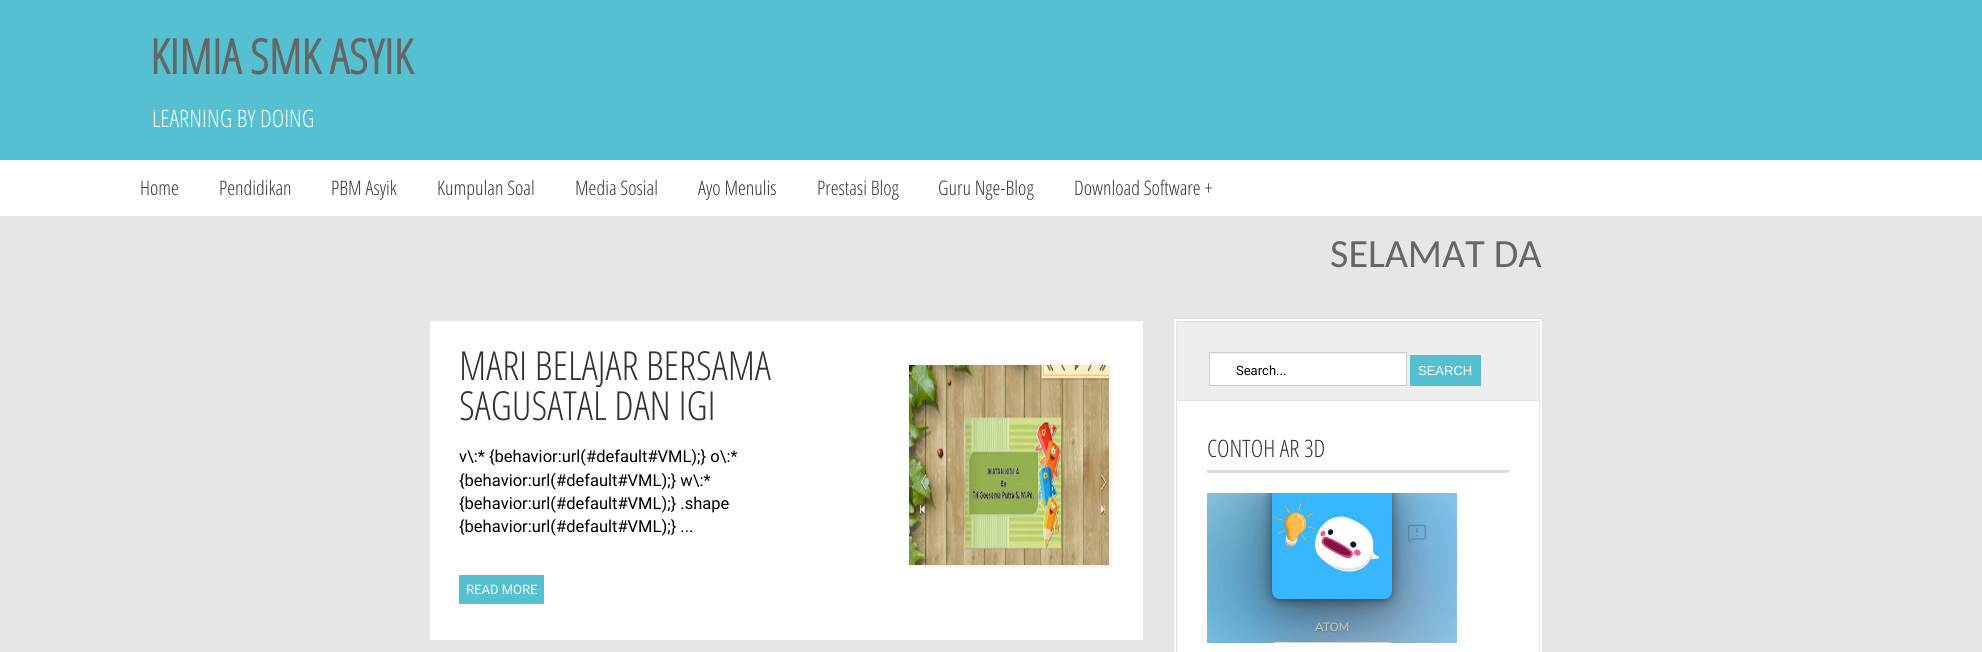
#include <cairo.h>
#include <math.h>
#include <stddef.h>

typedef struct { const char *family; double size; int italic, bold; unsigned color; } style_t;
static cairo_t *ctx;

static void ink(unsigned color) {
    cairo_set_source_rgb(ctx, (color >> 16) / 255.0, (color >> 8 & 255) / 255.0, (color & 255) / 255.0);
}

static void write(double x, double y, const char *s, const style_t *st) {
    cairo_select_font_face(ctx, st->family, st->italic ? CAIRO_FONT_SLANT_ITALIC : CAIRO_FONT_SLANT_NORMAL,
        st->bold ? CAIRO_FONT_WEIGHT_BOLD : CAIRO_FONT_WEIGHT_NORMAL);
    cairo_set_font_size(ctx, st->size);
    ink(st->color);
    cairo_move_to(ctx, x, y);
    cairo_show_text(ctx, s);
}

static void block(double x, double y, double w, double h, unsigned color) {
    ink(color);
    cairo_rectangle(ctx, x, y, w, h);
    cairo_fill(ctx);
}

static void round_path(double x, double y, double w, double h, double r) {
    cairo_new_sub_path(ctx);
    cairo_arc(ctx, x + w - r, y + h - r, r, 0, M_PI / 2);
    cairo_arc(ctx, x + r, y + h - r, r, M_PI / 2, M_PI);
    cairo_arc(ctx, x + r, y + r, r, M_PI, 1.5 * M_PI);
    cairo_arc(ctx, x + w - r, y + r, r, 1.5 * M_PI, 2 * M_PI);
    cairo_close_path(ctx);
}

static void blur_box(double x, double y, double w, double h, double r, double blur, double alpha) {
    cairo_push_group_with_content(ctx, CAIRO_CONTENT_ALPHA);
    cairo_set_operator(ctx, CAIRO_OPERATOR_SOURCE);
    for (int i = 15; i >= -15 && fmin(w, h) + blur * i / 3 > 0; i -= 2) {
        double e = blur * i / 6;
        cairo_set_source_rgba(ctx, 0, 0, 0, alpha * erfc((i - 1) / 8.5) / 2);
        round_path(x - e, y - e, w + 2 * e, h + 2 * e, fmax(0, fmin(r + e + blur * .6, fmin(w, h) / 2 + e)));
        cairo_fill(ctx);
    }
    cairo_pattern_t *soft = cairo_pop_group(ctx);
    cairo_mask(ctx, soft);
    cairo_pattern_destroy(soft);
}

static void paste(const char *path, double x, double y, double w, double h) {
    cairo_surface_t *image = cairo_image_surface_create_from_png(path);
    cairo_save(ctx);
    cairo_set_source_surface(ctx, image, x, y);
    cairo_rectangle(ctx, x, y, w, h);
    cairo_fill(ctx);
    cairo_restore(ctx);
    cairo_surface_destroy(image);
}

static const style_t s1 = {"Open Sans Condensed", 48, 0, 1, 0x666666};
static const style_t s2 = {"Open Sans Condensed Light", 24, 0, 0, 0xffffff};
static const style_t s3 = {"Open Sans Condensed Light", 20, 0, 0, 0x333333};
static const style_t s4 = {"Carlito", 40, 0, 0, 0x666666};
static const style_t s5 = {"Open Sans Condensed Light", 40, 0, 0, 0x333333};
static const style_t s6 = {"Roboto", 16.5, 0, 0, 0x000000};
static const style_t s7 = {"Roboto", 13, 0, 0, 0xffffff};
static const style_t s8 = {"Roboto", 13, 0, 0, 0x000000};
static const style_t s9 = {"Liberation Sans", 13, 0, 0, 0xffffff};
static const style_t s10 = {"Open Sans Condensed Light", 24, 0, 0, 0x333333};

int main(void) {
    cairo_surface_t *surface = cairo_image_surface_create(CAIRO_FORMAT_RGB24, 1982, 652);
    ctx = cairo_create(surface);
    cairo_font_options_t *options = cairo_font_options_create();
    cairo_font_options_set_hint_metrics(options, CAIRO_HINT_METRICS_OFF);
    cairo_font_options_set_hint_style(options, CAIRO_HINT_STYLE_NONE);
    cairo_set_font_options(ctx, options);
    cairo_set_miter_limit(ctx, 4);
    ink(0xe6e6e6);
    cairo_paint(ctx);
    block(0, 0, 1982, 160, 0x54c0d1);
    write(150, 74, "KIMIA SMK ASYIK", &s1);
    write(152, 127, "LEARNING BY DOING", &s2);
    block(0, 160, 1982, 56, 0xffffff);
    write(140, 195, "Home", &s3);
    write(219, 195, "Pendidikan", &s3);
    write(331, 195, "PBM Asyik", &s3);
    write(437, 195, "Kumpulan Soal", &s3);
    write(575, 195, "Media Sosial", &s3);
    write(698, 195, "Ayo Menulis", &s3);
    write(817, 195, "Prestasi Blog", &s3);
    write(938, 195, "Guru Nge-Blog", &s3);
    write(1074, 195, "Download Software +", &s3);
    write(1330, 267, "SELAMAT DA", &s4);
    block(430, 321, 713, 319, 0xffffff);
    write(459, 380, "MARI BELAJAR BERSAMA", &s5);
    write(459, 420, "SAGUSATAL DAN IGI", &s5);
    write(459, 462, "v\\:* {behavior:url(#default#VML);} o\\:*", &s6);
    write(459, 486, "{behavior:url(#default#VML);} w\\:*", &s6);
    write(459, 509, "{behavior:url(#default#VML);} .shape", &s6);
    write(459, 532, "{behavior:url(#default#VML);} ...", &s6);
    ink(0x000000);
    blur_box(910, 366, 200, 200, 0, 2.5, 0.1);
    paste("pic1.png", 909, 365, 200, 200);
    block(459, 575, 85, 29, 0x54c0d1);
    write(466, 594, "READ MORE", &s7);
    cairo_rectangle(ctx, 1173.5, 318.5, 369, 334);
    cairo_fill_preserve(ctx);
    ink(0xe1e1e1);
    cairo_set_line_width(ctx, 1);
    cairo_stroke(ctx);
    cairo_rectangle(ctx, 1176.5, 321.5, 363, 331);
    cairo_stroke(ctx);
    block(1177, 322, 362, 78, 0xeeeeee);
    block(1177, 400, 362, 1, 0xe1e1e1);
    block(1210, 354, 196, 31, 0xffffff);
    cairo_rectangle(ctx, 1209.5, 352.5, 197, 33);
    ink(0xcccccc);
    cairo_stroke(ctx);
    write(1236, 375, "Search...", &s8);
    block(1410, 355, 71, 31, 0x54c0d1);
    write(1418, 375, "SEARCH", &s9);
    block(1207, 470, 302, 3, 0xddddde);
    write(1207, 457, "CONTOH AR 3D", &s10);
    paste("pic2.png", 1207, 493, 250, 150);
    cairo_surface_write_to_png(surface, "screenshot.png");
    cairo_font_options_destroy(options);
    cairo_destroy(ctx);
    cairo_surface_destroy(surface);
    return 0;
}
